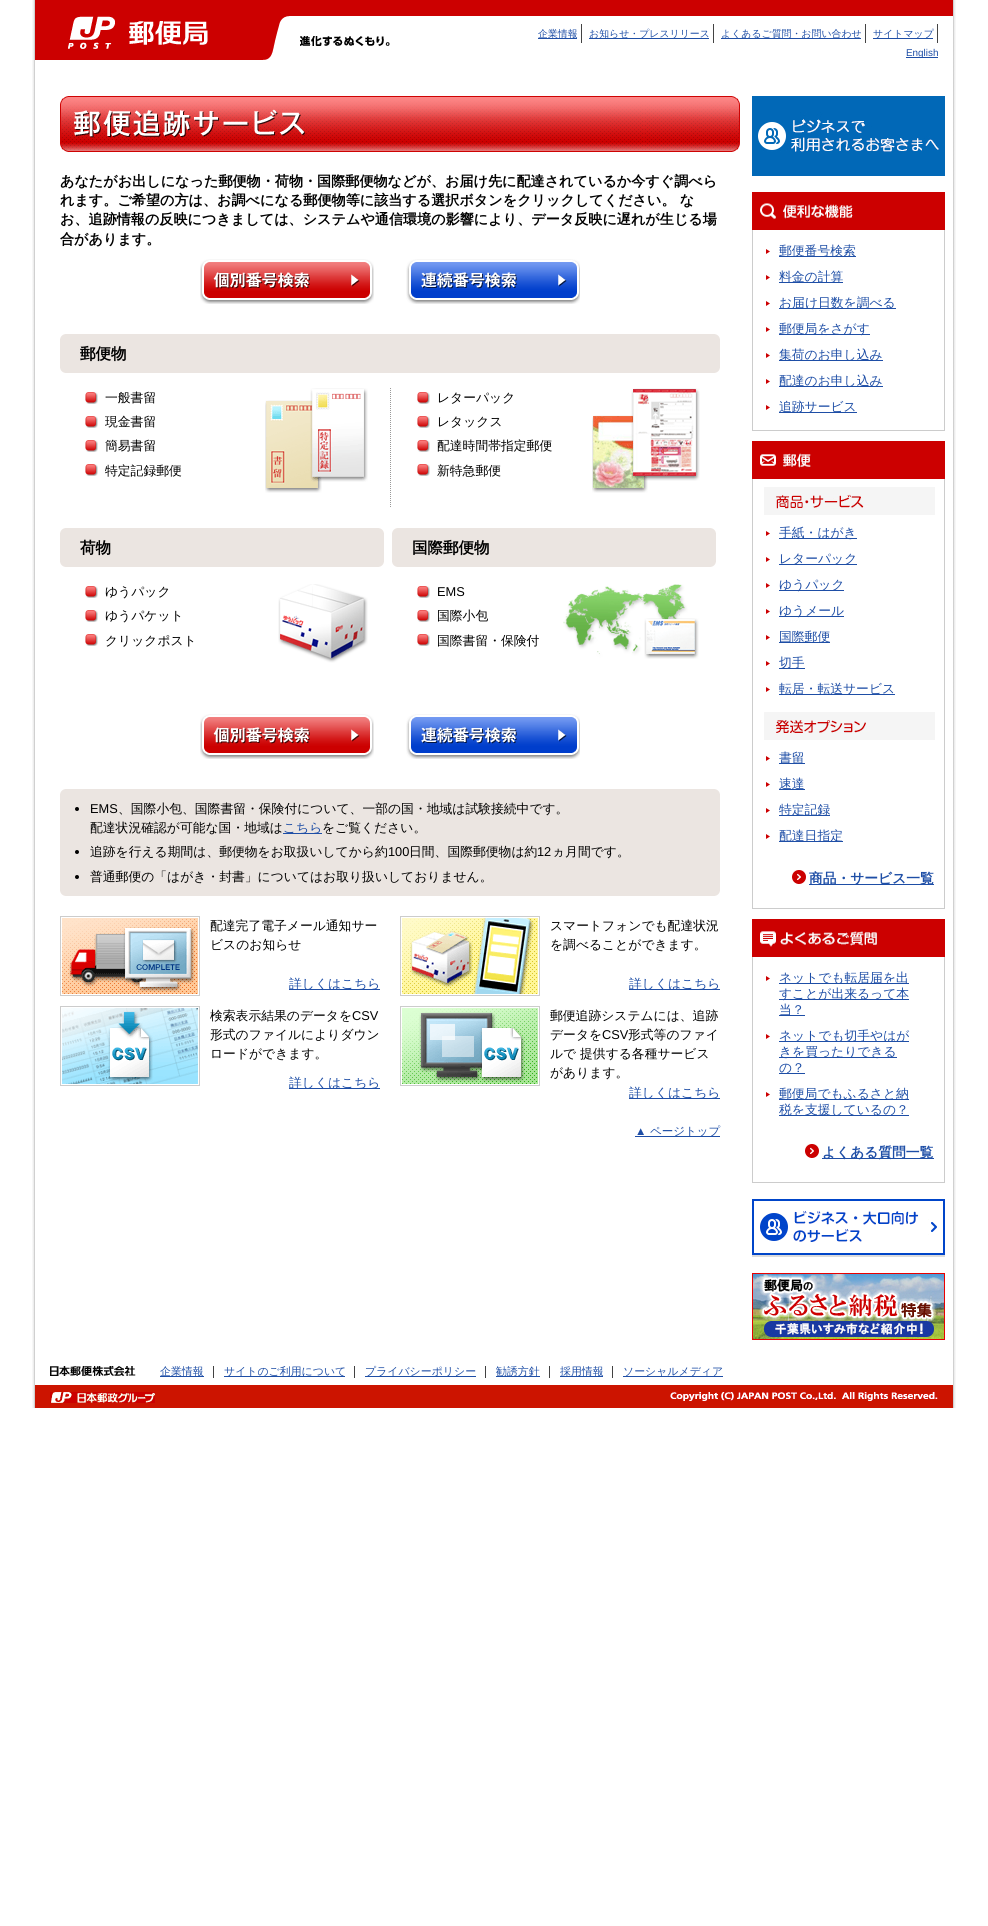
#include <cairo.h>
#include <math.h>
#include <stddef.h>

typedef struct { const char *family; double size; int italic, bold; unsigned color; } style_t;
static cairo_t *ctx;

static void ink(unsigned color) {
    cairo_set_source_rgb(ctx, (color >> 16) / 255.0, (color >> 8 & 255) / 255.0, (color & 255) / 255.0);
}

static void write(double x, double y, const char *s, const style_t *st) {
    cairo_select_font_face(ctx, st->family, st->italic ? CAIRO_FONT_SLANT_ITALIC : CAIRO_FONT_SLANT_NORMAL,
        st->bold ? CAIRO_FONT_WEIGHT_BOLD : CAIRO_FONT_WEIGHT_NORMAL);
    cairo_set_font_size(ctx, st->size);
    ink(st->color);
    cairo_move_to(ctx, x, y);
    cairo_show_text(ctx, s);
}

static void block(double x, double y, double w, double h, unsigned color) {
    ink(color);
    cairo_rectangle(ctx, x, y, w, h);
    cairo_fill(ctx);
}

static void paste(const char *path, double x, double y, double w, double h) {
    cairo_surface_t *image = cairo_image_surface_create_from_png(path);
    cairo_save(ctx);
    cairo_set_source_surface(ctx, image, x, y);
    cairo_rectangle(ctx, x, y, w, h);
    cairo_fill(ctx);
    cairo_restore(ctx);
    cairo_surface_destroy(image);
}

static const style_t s1 = {"WenQuanYi Zen Hei Medium", 9.9, 0, 0, 0x1e4ea6};
static const style_t s2 = {"Liberation Sans", 9.9, 0, 0, 0x1e4ea6};
static const style_t s3 = {"WenQuanYi Zen Hei", 14.1, 0, 1, 0x000000};
static const style_t s4 = {"WenQuanYi Zen Hei", 15.5, 0, 1, 0x000000};
static const style_t s5 = {"WenQuanYi Zen Hei Medium", 12.8, 0, 0, 0x000000};
static const style_t s6 = {"Liberation Sans", 12.8, 0, 0, 0x000000};
static const style_t s7 = {"WenQuanYi Zen Hei Medium", 12.8, 0, 0, 0x1e4ea6};
static const style_t s8 = {"Liberation Sans", 11.5, 0, 0, 0x1e4ea6};
static const style_t s9 = {"WenQuanYi Zen Hei Medium", 11.5, 0, 0, 0x1e4ea6};
static const style_t s10 = {"WenQuanYi Zen Hei", 13.75, 0, 1, 0x1e4ea6};
static const style_t s11 = {"WenQuanYi Zen Hei Medium", 10.9, 0, 0, 0x1e4ea6};

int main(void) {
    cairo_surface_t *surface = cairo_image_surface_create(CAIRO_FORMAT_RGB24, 988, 1926);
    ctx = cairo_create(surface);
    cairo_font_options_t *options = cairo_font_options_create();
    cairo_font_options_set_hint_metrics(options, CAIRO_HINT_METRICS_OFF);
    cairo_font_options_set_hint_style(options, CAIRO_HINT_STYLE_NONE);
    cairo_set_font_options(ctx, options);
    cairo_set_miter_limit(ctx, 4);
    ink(0xffffff);
    cairo_paint(ctx);
    paste("pic1.png", 32, 0, 924, 1408);
    paste("pic2.png", 35, 0, 918, 60);
    paste("pic3.png", 68, 16, 140, 33);
    paste("pic4.png", 300, 36, 90, 10);
    block(581, 24, 1, 19, 0x434343);
    block(538, 38, 39, 1, 0x1e4ea6);
    write(538, 37, "企業情報", &s1);
    block(713, 24, 1, 19, 0x434343);
    block(589, 38, 120, 1, 0x1e4ea6);
    write(589, 37, "お知らせ・プレスリリース", &s1);
    block(865, 24, 1, 19, 0x434343);
    block(721, 38, 140, 1, 0x1e4ea6);
    write(721, 37, "よくあるご質問・お問い合わせ", &s1);
    block(937, 24, 1, 19, 0x434343);
    block(873, 38, 60, 1, 0x1e4ea6);
    write(873, 37, "サイトマップ", &s1);
    block(906, 57, 32, 1, 0x1e4ea6);
    write(906, 56, "English", &s2);
    paste("pic5.png", 60, 96, 680, 56);
    write(60, 186, "あなたがお出しになった郵便物・荷物・国際郵便物などが、お届け先に配達されているか今すぐ調べら", &s3);
    write(60, 205, "れます。ご希望の方は、お調べになる郵便物等に該当する選択ボタンをクリックしてください。 な", &s3);
    write(60, 224, "お、追跡情報の反映につきましては、システムや通信環境の影響により、データ反映に遅れが生じる場", &s3);
    write(60, 244, "合があります。", &s3);
    paste("pic6.png", 200, 259, 174, 45);
    paste("pic7.png", 406, 259, 174, 45);
    block(60, 339, 660, 29, 0xebe5e1);
    paste("pic8.png", 60, 334, 660, 5);
    paste("pic9.png", 60, 368, 660, 5);
    write(80, 359, "郵便物", &s4);
    paste("pic10.png", 390, 388, 1, 119);
    paste("pic11.png", 85, 392, 13, 12);
    write(105, 402, "一般書留", &s5);
    paste("pic11.png", 85, 416, 13, 12);
    write(105, 426, "現金書留", &s5);
    paste("pic11.png", 85, 440, 13, 12);
    write(105, 450, "簡易書留", &s5);
    paste("pic11.png", 85, 464, 13, 12);
    write(105, 475, "特定記録郵便", &s5);
    paste("pic12.png", 265, 388, 103, 105);
    paste("pic11.png", 417, 392, 13, 12);
    write(437, 402, "レターパック", &s5);
    paste("pic11.png", 417, 416, 13, 12);
    write(437, 426, "レタックス", &s5);
    paste("pic11.png", 417, 440, 13, 12);
    write(437, 450, "配達時間帯指定郵便", &s5);
    paste("pic11.png", 417, 464, 13, 12);
    write(437, 475, "新特急郵便", &s5);
    paste("pic13.png", 592, 388, 108, 105);
    block(60, 533, 324, 29, 0xebe5e1);
    paste("pic14.png", 60, 528, 324, 5);
    paste("pic15.png", 60, 562, 324, 5);
    write(80, 553, "荷物", &s4);
    paste("pic11.png", 85, 586, 13, 12);
    write(105, 596, "ゆうパック", &s5);
    paste("pic11.png", 85, 610, 13, 12);
    write(105, 620, "ゆうパケット", &s5);
    paste("pic11.png", 85, 634, 13, 12);
    write(105, 645, "クリックポスト", &s5);
    paste("pic16.png", 278, 584, 90, 79);
    block(392, 533, 324, 29, 0xebe5e1);
    paste("pic14.png", 392, 528, 324, 5);
    paste("pic15.png", 392, 562, 324, 5);
    write(412, 553, "国際郵便物", &s4);
    paste("pic11.png", 417, 586, 13, 12);
    write(437, 596, "EMS", &s6);
    paste("pic11.png", 417, 610, 13, 12);
    write(437, 620, "国際小包", &s5);
    paste("pic11.png", 417, 634, 13, 12);
    write(437, 645, "国際書留・保険付", &s5);
    paste("pic17.png", 563, 584, 136, 75);
    paste("pic6.png", 200, 714, 174, 45);
    paste("pic7.png", 406, 714, 174, 45);
    block(60, 794, 660, 97, 0xebe5e1);
    paste("pic8.png", 60, 789, 660, 5);
    paste("pic9.png", 60, 891, 660, 5);
    ink(0x000000);
    cairo_arc(ctx, 77, 809, 2, 0, 2 * M_PI);
    cairo_fill(ctx);
    write(90, 813, "EMS", &s6);
    write(118, 813, "、国際小包、国際書留・保険付について、一部の国・地域は試験接続中です。", &s5);
    write(90, 832, "配達状況確認が可能な国・地域は", &s5);
    block(283, 833, 39, 1, 0x1e4ea6);
    write(283, 832, "こちら", &s7);
    write(322, 832, "をご覧ください。", &s5);
    cairo_new_path(ctx);
    cairo_arc(ctx, 77, 852, 2, 0, 2 * M_PI);
    cairo_fill(ctx);
    write(90, 856, "追跡を行える期間は、郵便物をお取扱いしてから約", &s5);
    write(388, 856, "100", &s6);
    write(409, 856, "日間、国際郵便物は約", &s5);
    write(537, 856, "12", &s6);
    write(552, 856, "ヵ月間です。", &s5);
    cairo_new_path(ctx);
    cairo_arc(ctx, 77, 877, 2, 0, 2 * M_PI);
    cairo_fill(ctx);
    write(90, 881, "普通郵便の「はがき・封書」についてはお取り扱いしておりません。", &s5);
    paste("pic18.png", 60, 916, 140, 80);
    write(210, 930, "配達完了電子メール通知サー", &s5);
    write(210, 949, "ビスのお知らせ", &s5);
    block(289, 989, 91, 1, 0x1e4ea6);
    write(289, 988, "詳しくはこちら", &s7);
    paste("pic19.png", 400, 916, 140, 80);
    write(550, 930, "スマートフォンでも配達状況", &s5);
    write(550, 949, "を調べることができます。", &s5);
    block(629, 989, 91, 1, 0x1e4ea6);
    write(629, 988, "詳しくはこちら", &s7);
    paste("pic20.png", 60, 1006, 140, 80);
    write(210, 1020, "検索表示結果のデータを", &s5);
    write(352, 1020, "CSV", &s6);
    write(210, 1039, "形式のファイルによりダウン", &s5);
    write(210, 1058, "ロードができます。", &s5);
    block(289, 1088, 91, 1, 0x1e4ea6);
    write(289, 1087, "詳しくはこちら", &s7);
    paste("pic21.png", 400, 1006, 140, 80);
    write(550, 1020, "郵便追跡システムには、追跡", &s5);
    write(550, 1039, "データを", &s5);
    write(602, 1039, "CSV", &s6);
    write(628, 1039, "形式等のファイ", &s5);
    write(550, 1058, "ルで 提供する各種サービス", &s5);
    write(550, 1077, "があります。", &s5);
    block(629, 1098, 91, 1, 0x1e4ea6);
    write(629, 1097, "詳しくはこちら", &s7);
    write(635, 1135, "▲", &s8);
    block(635, 1136, 85, 1, 0x1e4ea6);
    write(650, 1135, "ページトップ", &s9);
    paste("pic22.png", 752, 96, 193, 80);
    block(944, 229, 1, 202, 0xcccccc);
    block(752, 430, 193, 1, 0xcccccc);
    block(752, 229, 1, 202, 0xcccccc);
    paste("pic23.png", 752, 192, 193, 38);
    paste("pic24.png", 766, 249, 4, 5);
    block(779, 256, 77, 1, 0x1e4ea6);
    write(779, 255, "郵便番号検索", &s7);
    paste("pic24.png", 766, 275, 4, 5);
    block(779, 282, 64, 1, 0x1e4ea6);
    write(779, 281, "料金の計算", &s7);
    paste("pic24.png", 766, 301, 4, 5);
    block(779, 308, 117, 1, 0x1e4ea6);
    write(779, 307, "お届け日数を調べる", &s7);
    paste("pic24.png", 766, 327, 4, 5);
    block(779, 334, 91, 1, 0x1e4ea6);
    write(779, 333, "郵便局をさがす", &s7);
    paste("pic24.png", 766, 353, 4, 5);
    block(779, 360, 104, 1, 0x1e4ea6);
    write(779, 359, "集荷のお申し込み", &s7);
    paste("pic24.png", 766, 379, 4, 5);
    block(779, 386, 104, 1, 0x1e4ea6);
    write(779, 385, "配達のお申し込み", &s7);
    paste("pic24.png", 766, 405, 4, 5);
    block(779, 412, 78, 1, 0x1e4ea6);
    write(779, 411, "追跡サービス", &s7);
    block(944, 478, 1, 431, 0xcccccc);
    block(752, 908, 193, 1, 0xcccccc);
    block(752, 478, 1, 431, 0xcccccc);
    paste("pic25.png", 752, 441, 193, 38);
    paste("pic26.png", 764, 487, 171, 28);
    paste("pic24.png", 766, 531, 4, 5);
    block(779, 538, 78, 1, 0x1e4ea6);
    write(779, 537, "手紙・はがき", &s7);
    paste("pic24.png", 766, 557, 4, 5);
    block(779, 564, 78, 1, 0x1e4ea6);
    write(779, 563, "レターパック", &s7);
    paste("pic24.png", 766, 583, 4, 5);
    block(779, 590, 65, 1, 0x1e4ea6);
    write(779, 589, "ゆうパック", &s7);
    paste("pic24.png", 766, 609, 4, 5);
    block(779, 616, 65, 1, 0x1e4ea6);
    write(779, 615, "ゆうメール", &s7);
    paste("pic24.png", 766, 635, 4, 5);
    block(779, 642, 51, 1, 0x1e4ea6);
    write(779, 641, "国際郵便", &s7);
    paste("pic24.png", 766, 661, 4, 5);
    block(779, 668, 26, 1, 0x1e4ea6);
    write(779, 667, "切手", &s7);
    paste("pic24.png", 766, 687, 4, 5);
    block(779, 694, 116, 1, 0x1e4ea6);
    write(779, 693, "転居・転送サービス", &s7);
    paste("pic27.png", 764, 712, 171, 28);
    paste("pic24.png", 766, 756, 4, 5);
    block(779, 763, 26, 1, 0x1e4ea6);
    write(779, 762, "書留", &s7);
    paste("pic24.png", 766, 782, 4, 5);
    block(779, 789, 26, 1, 0x1e4ea6);
    write(779, 788, "速達", &s7);
    paste("pic24.png", 766, 808, 4, 5);
    block(779, 815, 51, 1, 0x1e4ea6);
    write(779, 814, "特定記録", &s7);
    paste("pic24.png", 766, 834, 4, 5);
    block(779, 841, 64, 1, 0x1e4ea6);
    write(779, 840, "配達日指定", &s7);
    paste("pic28.png", 792, 870, 14, 14);
    block(809, 884, 125, 1, 0x1e4ea6);
    write(809, 883, "商品・サービス一覧", &s10);
    block(944, 956, 1, 227, 0xcccccc);
    block(752, 1182, 193, 1, 0xcccccc);
    block(752, 956, 1, 227, 0xcccccc);
    paste("pic29.png", 752, 919, 193, 38);
    paste("pic24.png", 766, 976, 4, 5);
    block(779, 983, 130, 1, 0x1e4ea6);
    write(779, 982, "ネットでも転居届を出", &s7);
    block(779, 999, 130, 1, 0x1e4ea6);
    write(779, 998, "すことが出来るって本", &s7);
    block(779, 1015, 26, 1, 0x1e4ea6);
    write(779, 1014, "当？", &s7);
    paste("pic24.png", 766, 1034, 4, 5);
    block(779, 1041, 130, 1, 0x1e4ea6);
    write(779, 1040, "ネットでも切手やはが", &s7);
    block(779, 1057, 118, 1, 0x1e4ea6);
    write(779, 1056, "きを買ったりできる", &s7);
    block(779, 1073, 26, 1, 0x1e4ea6);
    write(779, 1072, "の？", &s7);
    paste("pic24.png", 766, 1092, 4, 5);
    block(779, 1099, 130, 1, 0x1e4ea6);
    write(779, 1098, "郵便局でもふるさと納", &s7);
    block(779, 1115, 130, 1, 0x1e4ea6);
    write(779, 1114, "税を支援しているの？", &s7);
    paste("pic28.png", 805, 1144, 14, 14);
    block(822, 1158, 112, 1, 0x1e4ea6);
    write(822, 1157, "よくある質問一覧", &s10);
    paste("pic30.png", 752, 1199, 193, 58);
    paste("pic31.png", 752, 1273, 193, 67);
    paste("pic32.png", 50, 1366, 86, 10);
    block(213, 1366, 1, 12, 0x424242);
    block(160, 1376, 44, 1, 0x1e4ea6);
    write(160, 1375, "企業情報", &s11);
    block(354, 1366, 1, 12, 0x424242);
    block(224, 1376, 121, 1, 0x1e4ea6);
    write(224, 1375, "サイトのご利用について", &s11);
    block(485, 1366, 1, 12, 0x424242);
    block(365, 1376, 111, 1, 0x1e4ea6);
    write(365, 1375, "プライバシーポリシー", &s11);
    block(549, 1366, 1, 12, 0x424242);
    block(496, 1376, 44, 1, 0x1e4ea6);
    write(496, 1375, "勧誘方針", &s11);
    block(612, 1366, 1, 12, 0x424242);
    block(560, 1376, 43, 1, 0x1e4ea6);
    write(560, 1375, "採用情報", &s11);
    block(623, 1376, 100, 1, 0x1e4ea6);
    write(623, 1375, "ソーシャルメディア", &s11);
    block(35, 1385, 918, 23, 0xcc1400);
    paste("pic33.png", 50, 1392, 105, 11);
    paste("pic34.png", 670, 1392, 268, 9);
    cairo_surface_write_to_png(surface, "screenshot.png");
    cairo_font_options_destroy(options);
    cairo_destroy(ctx);
    cairo_surface_destroy(surface);
    return 0;
}
